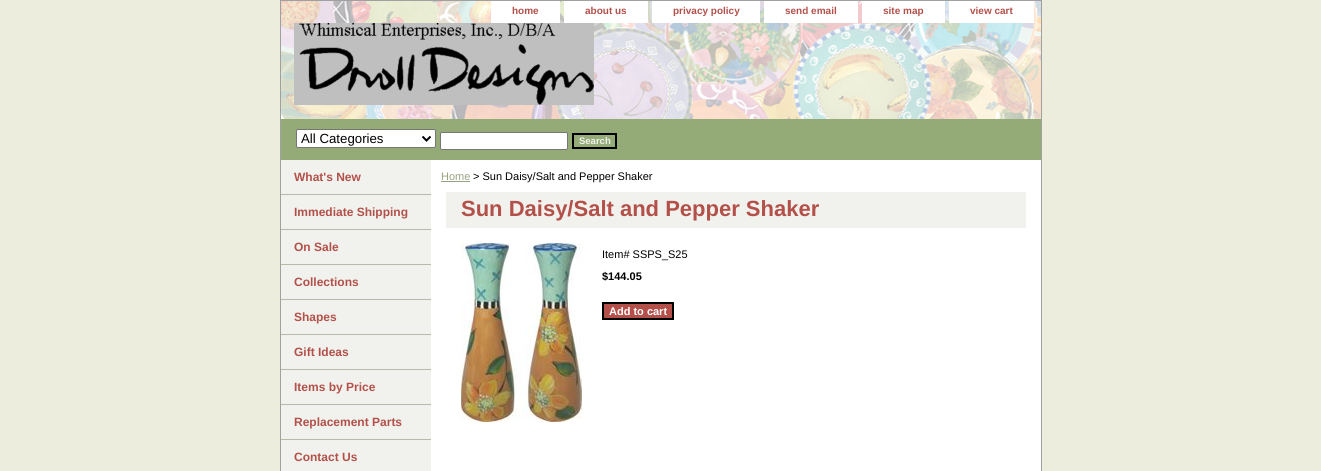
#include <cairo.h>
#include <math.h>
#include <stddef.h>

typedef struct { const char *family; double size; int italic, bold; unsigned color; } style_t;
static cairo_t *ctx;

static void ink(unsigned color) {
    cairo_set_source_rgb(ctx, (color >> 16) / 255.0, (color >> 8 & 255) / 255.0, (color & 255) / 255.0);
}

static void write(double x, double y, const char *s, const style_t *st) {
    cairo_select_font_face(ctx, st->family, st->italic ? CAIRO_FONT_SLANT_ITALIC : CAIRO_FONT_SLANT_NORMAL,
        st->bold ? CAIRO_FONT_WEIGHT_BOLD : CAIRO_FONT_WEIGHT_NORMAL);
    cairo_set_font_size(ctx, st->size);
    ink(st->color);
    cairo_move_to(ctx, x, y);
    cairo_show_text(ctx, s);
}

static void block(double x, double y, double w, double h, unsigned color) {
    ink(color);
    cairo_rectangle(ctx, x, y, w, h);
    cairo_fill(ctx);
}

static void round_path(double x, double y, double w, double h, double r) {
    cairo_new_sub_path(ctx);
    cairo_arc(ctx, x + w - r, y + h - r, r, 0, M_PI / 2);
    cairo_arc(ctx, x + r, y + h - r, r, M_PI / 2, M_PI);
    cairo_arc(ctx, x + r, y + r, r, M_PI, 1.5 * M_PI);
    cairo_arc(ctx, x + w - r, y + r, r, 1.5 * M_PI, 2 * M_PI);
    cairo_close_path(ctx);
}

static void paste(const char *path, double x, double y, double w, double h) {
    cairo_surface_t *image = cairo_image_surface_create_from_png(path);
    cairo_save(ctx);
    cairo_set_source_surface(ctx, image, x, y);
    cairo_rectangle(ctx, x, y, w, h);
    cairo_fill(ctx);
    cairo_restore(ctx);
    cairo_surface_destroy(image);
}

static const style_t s1 = {"Liberation Sans", 10, 0, 1, 0xb3504a};
static const style_t s2 = {"Liberation Sans", 13.25, 0, 0, 0x000000};
static const style_t s3 = {"Liberation Sans", 9.5, 0, 1, 0xf1f2ed};
static const style_t s4 = {"Liberation Sans", 12, 0, 1, 0xb3504a};
static const style_t s5 = {"Liberation Sans", 11, 0, 0, 0x98a280};
static const style_t s6 = {"Liberation Sans", 11, 0, 0, 0x000000};
static const style_t s7 = {"Liberation Sans", 22, 0, 1, 0xb3504a};
static const style_t s8 = {"Liberation Sans", 11, 0, 1, 0x000000};
static const style_t s9 = {"Liberation Sans", 11, 0, 1, 0xffffff};

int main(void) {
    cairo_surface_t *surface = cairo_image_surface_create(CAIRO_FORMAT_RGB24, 1321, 471);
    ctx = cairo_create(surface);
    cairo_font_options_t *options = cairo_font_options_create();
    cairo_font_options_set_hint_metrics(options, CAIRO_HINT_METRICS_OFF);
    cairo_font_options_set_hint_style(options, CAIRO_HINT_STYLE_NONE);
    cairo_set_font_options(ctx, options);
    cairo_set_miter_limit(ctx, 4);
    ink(0xeceddc);
    cairo_paint(ctx);
    block(431, 160, 610, 311, 0xffffff);
    cairo_rectangle(ctx, 280.5, 0.5, 761, 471);
    ink(0xa0a0a0);
    cairo_set_line_width(ctx, 1);
    cairo_stroke(ctx);
    paste("pic1.png", 281, 1, 760, 118);
    block(491, 1, 69, 22, 0xffffff);
    write(512, 14, "home", &s1);
    block(564, 1, 84, 22, 0xffffff);
    write(585, 14, "about us", &s1);
    block(652, 1, 108, 22, 0xffffff);
    write(673, 14, "privacy policy", &s1);
    block(764, 1, 94, 22, 0xffffff);
    write(785, 14, "send email", &s1);
    block(862, 1, 83, 22, 0xffffff);
    write(883, 14, "site map", &s1);
    block(949, 1, 85, 22, 0xffffff);
    write(970, 14, "view cart", &s1);
    paste("pic2.png", 294, 23, 300, 82);
    block(281, 119, 760, 41, 0x94aa77);
    ink(0xffffff);
    round_path(296.5, 129.5, 139, 18, 1.5);
    cairo_fill_preserve(ctx);
    ink(0x767676);
    cairo_stroke(ctx);
    cairo_new_path(ctx);
    cairo_move_to(ctx, 422.5, 136.5);
    cairo_line_to(ctx, 426.5, 140.5);
    cairo_line_to(ctx, 430.5, 136.5);
    ink(0x000000);
    cairo_set_line_width(ctx, 2);
    cairo_stroke(ctx);
    write(301, 143, "All Categories", &s2);
    ink(0xffffff);
    round_path(440.5, 132.5, 127, 17, 1.5);
    cairo_fill_preserve(ctx);
    ink(0x767676);
    cairo_set_line_width(ctx, 1);
    cairo_stroke(ctx);
    cairo_rectangle(ctx, 573, 134, 43, 14);
    ink(0x000000);
    cairo_set_line_width(ctx, 2);
    cairo_stroke(ctx);
    write(579, 144, "Search", &s3);
    block(281, 160, 150, 311, 0xf1f2ed);
    block(281, 194, 150, 1, 0xb4bbab);
    write(294, 181, "What's New", &s4);
    block(281, 229, 150, 1, 0xb4bbab);
    write(294, 216, "Immediate Shipping", &s4);
    block(281, 264, 150, 1, 0xb4bbab);
    write(294, 251, "On Sale", &s4);
    block(281, 299, 150, 1, 0xb4bbab);
    write(294, 286, "Collections", &s4);
    block(281, 334, 150, 1, 0xb4bbab);
    write(294, 321, "Shapes", &s4);
    block(281, 369, 150, 1, 0xb4bbab);
    write(294, 356, "Gift Ideas", &s4);
    block(281, 404, 150, 1, 0xb4bbab);
    write(294, 391, "Items by Price", &s4);
    block(281, 439, 150, 1, 0xb4bbab);
    write(294, 426, "Replacement Parts", &s4);
    write(294, 461, "Contact Us", &s4);
    write(441, 180, "Home", &s5);
    block(441, 181, 29, 1, 0x98a280);
    write(473, 180, "> Sun Daisy/Salt and Pepper Shaker", &s6);
    block(446, 192, 580, 36, 0xf1f2ed);
    write(461, 216, "Sun Daisy/Salt and Pepper Shaker", &s7);
    paste("pic3.png", 461, 243, 121, 179);
    write(602, 258, "Item# SSPS_S25", &s6);
    write(602, 280, "$144.05", &s8);
    ink(0xb3504a);
    cairo_rectangle(ctx, 603, 303, 70, 16);
    cairo_fill_preserve(ctx);
    ink(0x000000);
    cairo_stroke(ctx);
    write(609, 315, "Add to cart", &s9);
    cairo_surface_write_to_png(surface, "screenshot.png");
    cairo_font_options_destroy(options);
    cairo_destroy(ctx);
    cairo_surface_destroy(surface);
    return 0;
}
